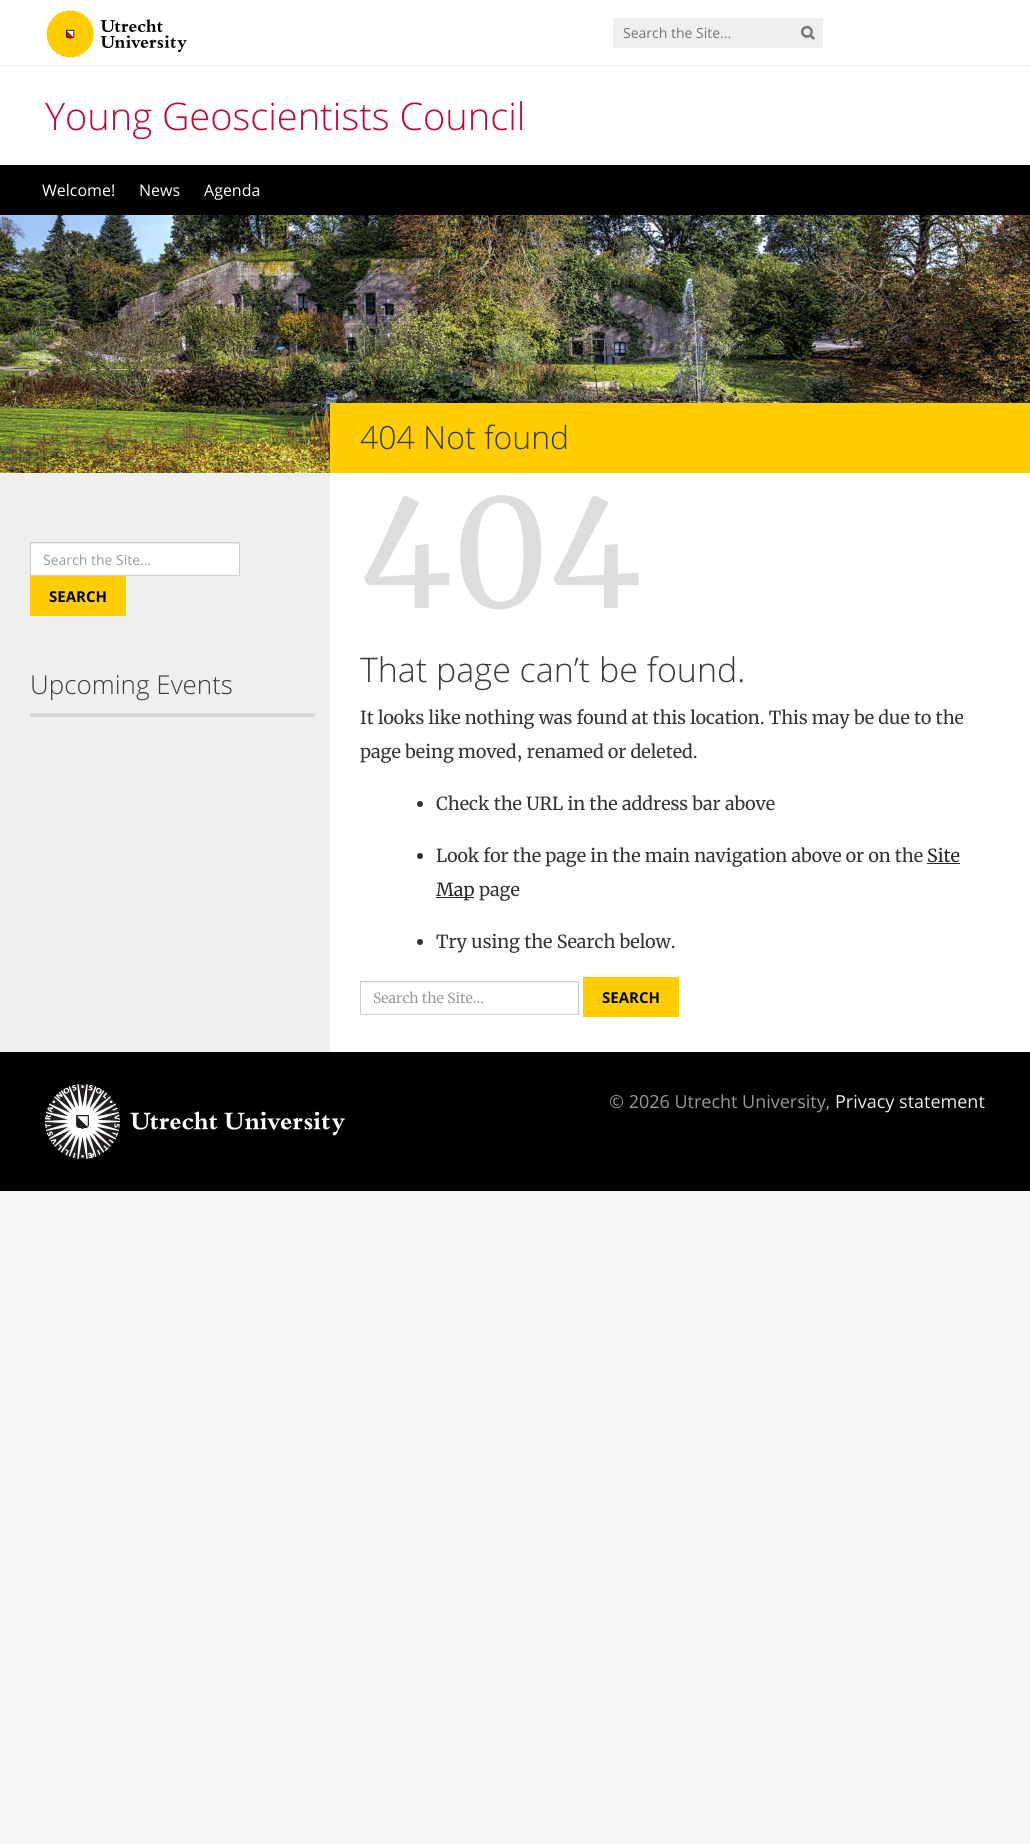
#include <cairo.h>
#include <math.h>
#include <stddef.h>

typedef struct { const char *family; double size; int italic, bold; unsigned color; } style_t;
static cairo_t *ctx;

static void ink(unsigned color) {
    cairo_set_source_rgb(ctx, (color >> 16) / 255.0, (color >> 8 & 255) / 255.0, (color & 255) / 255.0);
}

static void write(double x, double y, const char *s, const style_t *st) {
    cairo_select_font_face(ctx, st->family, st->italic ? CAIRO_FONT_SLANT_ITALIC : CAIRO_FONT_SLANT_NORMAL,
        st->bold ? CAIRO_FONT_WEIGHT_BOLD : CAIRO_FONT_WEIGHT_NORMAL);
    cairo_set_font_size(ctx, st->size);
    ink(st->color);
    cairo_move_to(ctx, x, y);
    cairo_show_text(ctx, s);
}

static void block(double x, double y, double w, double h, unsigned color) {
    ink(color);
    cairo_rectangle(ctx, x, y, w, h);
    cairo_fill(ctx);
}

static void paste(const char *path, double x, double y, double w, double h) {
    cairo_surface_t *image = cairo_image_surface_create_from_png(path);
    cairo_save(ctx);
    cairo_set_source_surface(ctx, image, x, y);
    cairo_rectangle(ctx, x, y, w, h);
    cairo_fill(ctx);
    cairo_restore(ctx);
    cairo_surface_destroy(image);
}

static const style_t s1 = {"Open Sans", 14, 0, 0, 0x757575};
static const style_t s2 = {"Open Sans Light", 38, 0, 0, 0xc00a35};
static const style_t s3 = {"Open Sans", 16, 0, 0, 0xffffff};
static const style_t s4 = {"Open Sans", 14, 0, 0, 0x999999};
static const style_t s5 = {"Open Sans", 15, 0, 1, 0x000000};
static const style_t s6 = {"Open Sans Light", 26, 0, 0, 0x3b3b3b};
static const style_t s7 = {"Open Sans Light", 32, 0, 0, 0x3b3b3b};
static const style_t s8 = {"Merriweather", 150, 0, 0, 0xdddddd};
static const style_t s9 = {"Open Sans Light", 34, 0, 0, 0x3b3b3b};
static const style_t s10 = {"Merriweather", 18, 0, 0, 0x333333};
static const style_t s11 = {"Merriweather", 18, 0, 0, 0x262626};
static const style_t s12 = {"Merriweather", 14, 0, 0, 0x999999};
static const style_t s13 = {"Open Sans", 18, 0, 0, 0x999999};
static const style_t s14 = {"Open Sans", 18, 0, 0, 0xeeeeee};

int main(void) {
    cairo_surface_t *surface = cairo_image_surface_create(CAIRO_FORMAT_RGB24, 1030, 1844);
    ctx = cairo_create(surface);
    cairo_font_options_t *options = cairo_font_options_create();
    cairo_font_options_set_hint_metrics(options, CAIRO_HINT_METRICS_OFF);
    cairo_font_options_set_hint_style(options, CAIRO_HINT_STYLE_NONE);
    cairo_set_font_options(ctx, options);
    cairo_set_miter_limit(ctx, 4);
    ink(0xf6f6f6);
    cairo_paint(ctx);
    block(0, 0, 1030, 65, 0xffffff);
    block(0, 65, 1030, 1, 0xefefef);
    paste("pic1.png", 46, 10, 141, 48);
    block(613, 18, 210, 30, 0xefefef);
    write(623, 38, "Search the Site...", &s1);
    paste("pic2.png", 801, 25, 14, 15);
    block(0, 66, 1030, 99, 0xffffff);
    write(45, 130, "Young Geoscientists Council", &s2);
    block(0, 165, 1030, 50, 0x000000);
    write(42, 196, "Welcome!", &s3);
    write(139, 196, "News", &s3);
    write(204, 196, "Agenda", &s3);
    block(0, 473, 330, 579, 0xefefef);
    block(330, 473, 700, 579, 0xffffff);
    paste("pic3.png", 0, 215, 1030, 258);
    block(330, 403, 700, 70, 0xffcd00);
    block(31, 544, 208, 31, 0xffffff);
    block(31, 543, 208, 1, 0xececec);
    cairo_rectangle(ctx, 30.5, 542.5, 209, 33);
    ink(0xcccccc);
    cairo_set_line_width(ctx, 1);
    cairo_stroke(ctx);
    write(43, 565, "Search the Site...", &s4);
    block(30, 576, 96, 40, 0xffcd00);
    write(49, 602, "SEARCH", &s5);
    block(30, 713, 285, 4, 0xd7d7d7);
    write(30, 694, "Upcoming Events", &s6);
    write(360, 449, "404 Not found", &s7);
    write(360, 608, "404", &s8);
    write(360, 682, "That page can’t be found.", &s9);
    write(360, 724, "It looks like nothing was found at this location. This may be due to the", &s10);
    write(360, 758, "page being moved, renamed or deleted.", &s10);
    cairo_new_path(ctx);
    cairo_arc(ctx, 420, 804, 3, 0, 2 * M_PI);
    cairo_fill(ctx);
    write(436, 810, "Check the URL in the address bar above", &s10);
    cairo_new_path(ctx);
    cairo_arc(ctx, 420, 856, 3, 0, 2 * M_PI);
    cairo_fill(ctx);
    write(436, 862, "Look for the page in the main navigation above or on the", &s10);
    write(927, 862, "Site", &s11);
    block(927, 863, 33, 1, 0x262626);
    block(436, 897, 38, 1, 0x262626);
    write(436, 896, "Map", &s11);
    write(479, 896, "page", &s10);
    cairo_new_path(ctx);
    cairo_arc(ctx, 420, 942, 3, 0, 2 * M_PI);
    cairo_fill(ctx);
    write(436, 948, "Try using the Search below.", &s10);
    block(361, 982, 217, 1, 0xececec);
    cairo_rectangle(ctx, 360.5, 981.5, 218, 33);
    ink(0xcccccc);
    cairo_stroke(ctx);
    write(373, 1003, "Search the Site...", &s12);
    block(583, 977, 96, 40, 0xffcd00);
    write(602, 1003, "SEARCH", &s5);
    block(0, 1052, 1030, 139, 0x000000);
    paste("pic4.png", 45, 1084, 300, 75);
    write(609, 1108, "© 2026 Utrecht University,", &s13);
    write(835, 1108, "Privacy statement", &s14);
    cairo_surface_write_to_png(surface, "screenshot.png");
    cairo_font_options_destroy(options);
    cairo_destroy(ctx);
    cairo_surface_destroy(surface);
    return 0;
}
